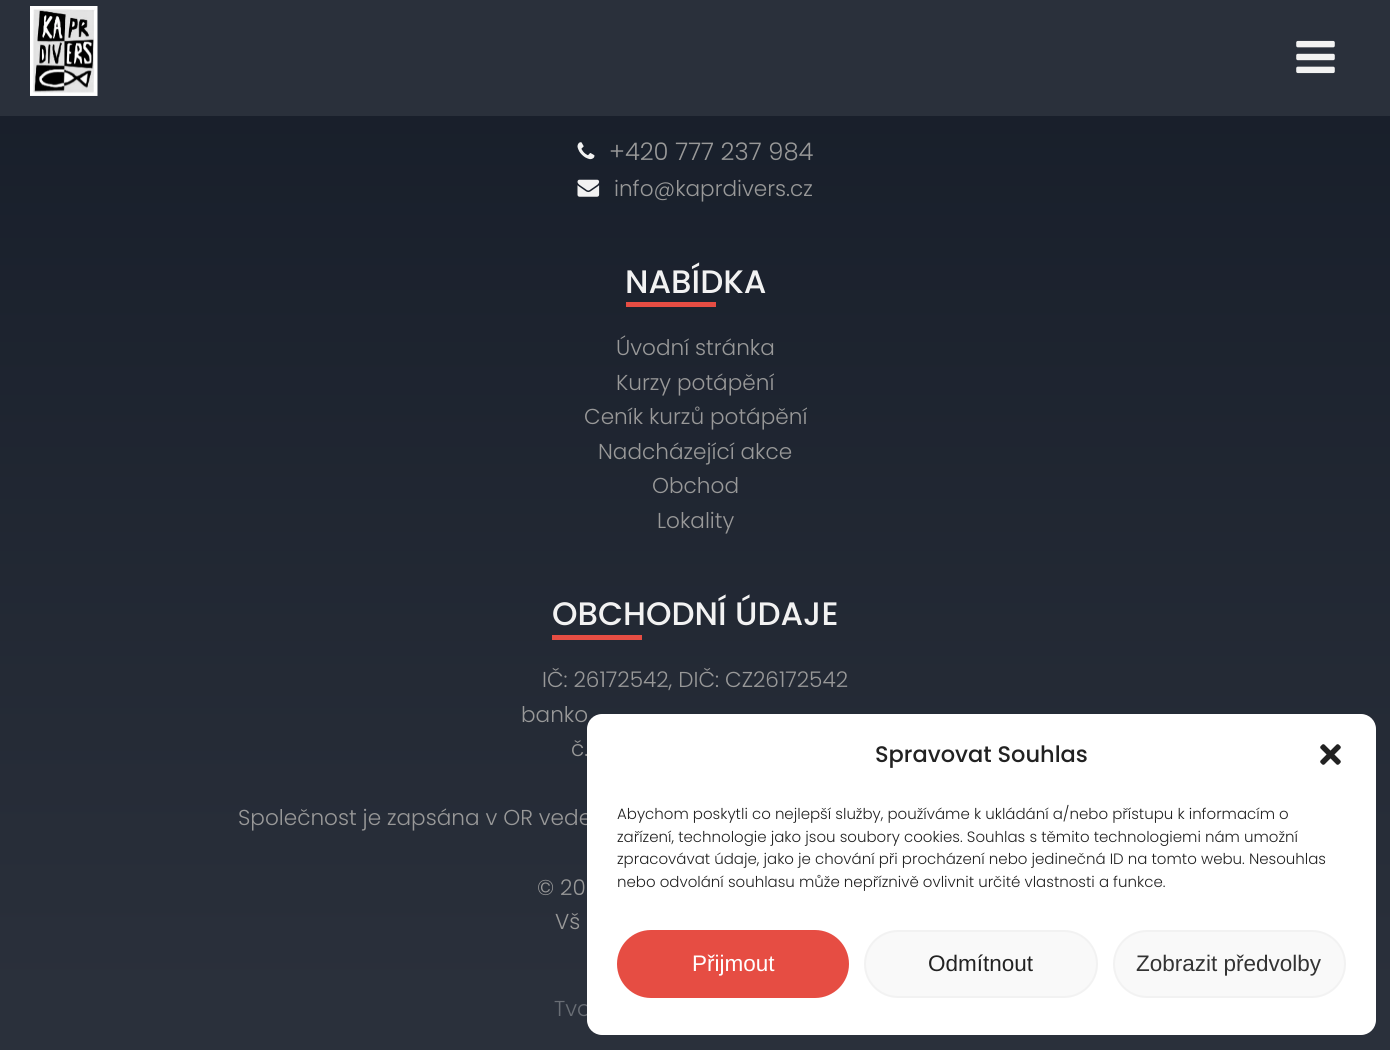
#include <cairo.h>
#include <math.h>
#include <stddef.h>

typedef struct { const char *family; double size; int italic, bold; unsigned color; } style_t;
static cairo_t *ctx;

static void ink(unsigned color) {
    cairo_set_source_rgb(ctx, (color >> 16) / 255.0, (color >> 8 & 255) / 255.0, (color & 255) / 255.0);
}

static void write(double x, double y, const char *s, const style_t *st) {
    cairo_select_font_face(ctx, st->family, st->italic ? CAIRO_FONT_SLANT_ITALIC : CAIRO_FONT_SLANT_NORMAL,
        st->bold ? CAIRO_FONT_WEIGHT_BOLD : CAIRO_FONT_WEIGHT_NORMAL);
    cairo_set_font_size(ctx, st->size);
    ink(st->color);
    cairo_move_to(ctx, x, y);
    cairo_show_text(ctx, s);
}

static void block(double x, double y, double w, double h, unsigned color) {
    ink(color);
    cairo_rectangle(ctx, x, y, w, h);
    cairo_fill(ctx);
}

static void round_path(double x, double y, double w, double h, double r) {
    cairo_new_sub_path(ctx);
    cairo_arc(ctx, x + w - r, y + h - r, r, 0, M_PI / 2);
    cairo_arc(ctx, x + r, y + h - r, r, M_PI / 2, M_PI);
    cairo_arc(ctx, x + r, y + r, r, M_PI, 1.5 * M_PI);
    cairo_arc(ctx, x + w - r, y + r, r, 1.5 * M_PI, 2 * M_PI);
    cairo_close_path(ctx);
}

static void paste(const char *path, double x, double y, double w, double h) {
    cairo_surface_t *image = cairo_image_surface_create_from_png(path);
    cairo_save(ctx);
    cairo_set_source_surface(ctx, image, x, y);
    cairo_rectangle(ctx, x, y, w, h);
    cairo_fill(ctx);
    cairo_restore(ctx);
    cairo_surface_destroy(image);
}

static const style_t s1 = {"Poppins Light", 24.25, 0, 0, 0x999999};
static const style_t s2 = {"Poppins Light", 21.6, 0, 0, 0x999999};
static const style_t s3 = {"Poppins Medium", 32.5, 0, 0, 0xf2f2f2};
static const style_t s4 = {"Poppins Light", 21.6, 0, 0, 0x696e75};
static const style_t s5 = {"Poppins Medium", 22.5, 0, 0, 0x222222};
static const style_t s6 = {"Poppins Light", 15, 0, 0, 0x222222};
static const style_t s7 = {"Liberation Sans", 22.5, 0, 0, 0xffffff};
static const style_t s8 = {"Liberation Sans", 22.5, 0, 0, 0x222222};
static const style_t s9 = {"Liberation Sans", 22.5, 0, 0, 0x333333};

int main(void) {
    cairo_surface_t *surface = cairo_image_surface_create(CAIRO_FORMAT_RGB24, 1390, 1050);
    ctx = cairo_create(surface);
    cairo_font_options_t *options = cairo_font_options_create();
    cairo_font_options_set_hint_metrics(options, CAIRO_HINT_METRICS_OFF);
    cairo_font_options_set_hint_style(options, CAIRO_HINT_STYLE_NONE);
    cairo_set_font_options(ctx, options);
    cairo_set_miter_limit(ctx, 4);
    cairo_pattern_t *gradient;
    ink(0xffffff);
    cairo_paint(ctx);
    block(0, 0, 1390, 116, 0x2a303b);
    paste("pic1.png", 30, 6, 68, 90);
    paste("pic2.png", 1296, 40, 39, 34);
    gradient = cairo_pattern_create_linear(695, -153, 695, 992);
    cairo_pattern_add_color_stop_rgba(gradient, 0, 0.075, 0.102, 0.149, 1);
    cairo_pattern_add_color_stop_rgba(gradient, 1, 0.165, 0.188, 0.231, 1);
    cairo_set_source(ctx, gradient);
    cairo_pattern_destroy(gradient);
    cairo_rectangle(ctx, 0, 116, 1390, 876);
    cairo_fill(ctx);
    paste("pic3.png", 577, 142, 18, 18);
    write(609, 160, "+420 777 237 984", &s1);
    paste("pic4.png", 577, 179, 23, 18);
    write(614, 196, "info@kaprdivers.cz", &s2);
    write(625, 293, "NABÍDKA", &s3);
    block(626, 302, 90, 5, 0xe64d43);
    write(616, 355, "Úvodní stránka", &s2);
    write(616, 390, "Kurzy potápění", &s2);
    write(584, 424, "Ceník kurzů potápění", &s2);
    write(598, 459, "Nadcházející akce", &s2);
    write(652, 493, "Obchod", &s2);
    write(657, 528, "Lokality", &s2);
    write(552, 625, "OBCHODNÍ ÚDAJE", &s3);
    block(552, 635, 90, 5, 0xe64d43);
    write(542, 687, "IČ: 26172542, DIČ: CZ26172542", &s2);
    write(521, 722, "banko", &s2);
    write(571, 756, "č.", &s2);
    write(238, 825, "Společnost je zapsána v OR vede", &s2);
    write(537, 895, "© 20", &s2);
    write(555, 929, "Vš", &s2);
    block(0, 992, 1390, 58, 0x2a303b);
    write(554, 1016, "Tvo", &s4);
    ink(0xffffff);
    round_path(587, 714, 789, 321, 15);
    cairo_fill(ctx);
    write(875, 762, "Spravovat Souhlas", &s5);
    paste("pic5.png", 1320, 744, 21, 21);
    write(617, 819, "Abychom poskytli co nejlepší služby, používáme k ukládání a/nebo přístupu k informacím o", &s6);
    write(617, 842, "zařízení, technologie jako jsou soubory cookies. Souhlas s těmito technologiemi nám umožní", &s6);
    write(617, 864, "zpracovávat údaje, jako je chování při procházení nebo jedinečná ID na tomto webu. Nesouhlas", &s6);
    write(617, 887, "nebo odvolání souhlasu může nepříznivě ovlivnit určité vlastnosti a funkce.", &s6);
    ink(0xe64d43);
    round_path(618, 931, 230, 66, 33);
    cairo_fill_preserve(ctx);
    cairo_stroke(ctx);
    write(692, 971, "Přijmout", &s7);
    ink(0xf9f9f9);
    round_path(865, 931, 232, 66, 33);
    cairo_fill_preserve(ctx);
    ink(0xf2f2f2);
    cairo_stroke(ctx);
    write(928, 971, "Odmítnout", &s8);
    ink(0xf9f9f9);
    round_path(1114, 931, 231, 66, 33);
    cairo_fill_preserve(ctx);
    ink(0xf2f2f2);
    cairo_stroke(ctx);
    write(1136, 971, "Zobrazit předvolby", &s9);
    cairo_surface_write_to_png(surface, "screenshot.png");
    cairo_font_options_destroy(options);
    cairo_destroy(ctx);
    cairo_surface_destroy(surface);
    return 0;
}
